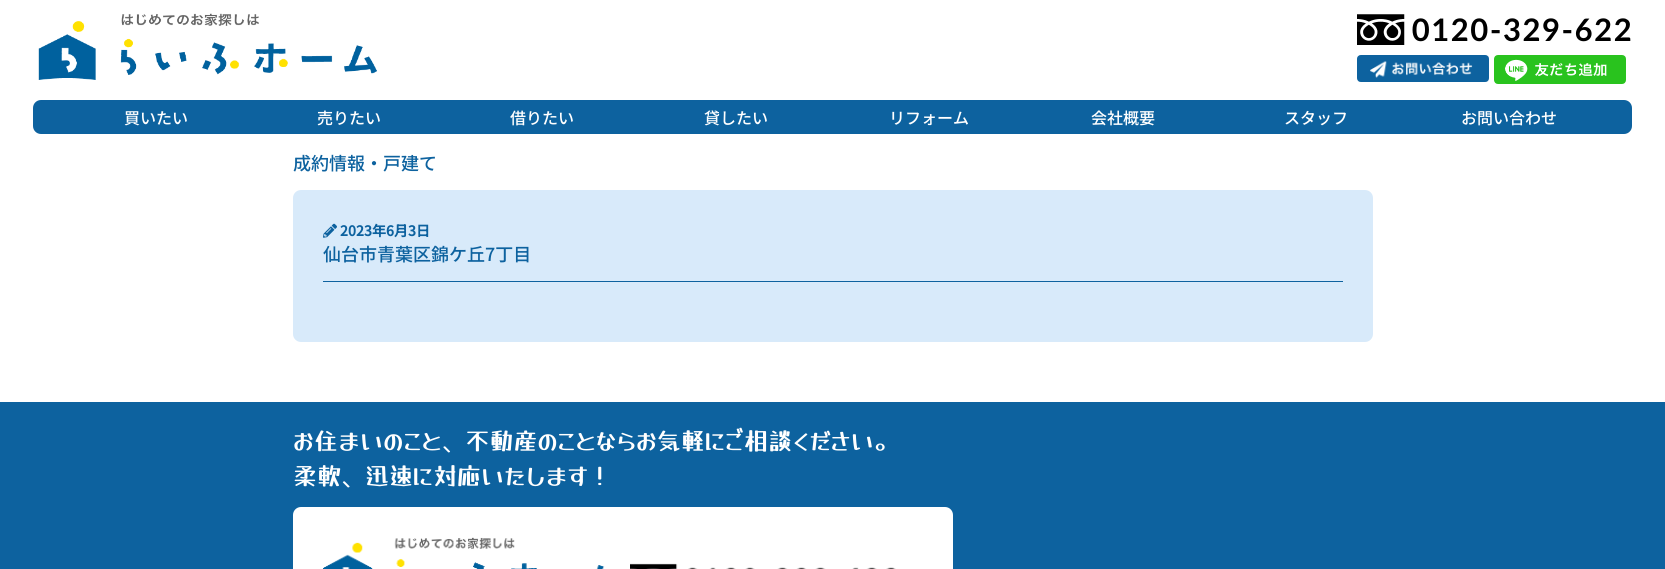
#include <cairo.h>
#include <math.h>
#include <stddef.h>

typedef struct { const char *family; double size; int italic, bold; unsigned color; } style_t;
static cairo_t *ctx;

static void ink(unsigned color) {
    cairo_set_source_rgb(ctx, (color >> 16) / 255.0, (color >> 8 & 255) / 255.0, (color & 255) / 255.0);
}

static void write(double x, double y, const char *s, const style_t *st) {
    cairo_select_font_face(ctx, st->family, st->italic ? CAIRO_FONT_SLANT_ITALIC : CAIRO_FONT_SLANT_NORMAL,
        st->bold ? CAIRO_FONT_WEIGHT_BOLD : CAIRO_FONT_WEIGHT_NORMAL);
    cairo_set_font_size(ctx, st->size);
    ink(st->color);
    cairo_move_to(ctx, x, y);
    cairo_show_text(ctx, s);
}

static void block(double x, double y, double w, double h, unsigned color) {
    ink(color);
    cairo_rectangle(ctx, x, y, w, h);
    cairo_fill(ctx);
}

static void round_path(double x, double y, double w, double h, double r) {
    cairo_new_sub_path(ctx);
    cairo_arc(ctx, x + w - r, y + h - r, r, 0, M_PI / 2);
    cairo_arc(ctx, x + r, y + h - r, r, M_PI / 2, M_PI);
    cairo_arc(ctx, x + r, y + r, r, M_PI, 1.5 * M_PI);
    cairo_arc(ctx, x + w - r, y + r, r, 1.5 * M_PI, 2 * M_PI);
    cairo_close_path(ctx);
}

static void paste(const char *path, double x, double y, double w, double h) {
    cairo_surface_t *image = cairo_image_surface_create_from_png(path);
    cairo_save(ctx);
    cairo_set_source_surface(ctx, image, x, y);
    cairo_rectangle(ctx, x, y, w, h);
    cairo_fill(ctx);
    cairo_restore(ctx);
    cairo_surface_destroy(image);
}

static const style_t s1 = {"Noto Sans JP Medium", 16, 0, 0, 0xffffff};
static const style_t s2 = {"Noto Sans JP Medium", 18, 0, 0, 0x0d629f};
static const style_t s3 = {"Noto Sans JP", 14, 0, 1, 0x0d629f};
static const style_t s4 = {"Yusei Magic", 24, 0, 0, 0xffffff};

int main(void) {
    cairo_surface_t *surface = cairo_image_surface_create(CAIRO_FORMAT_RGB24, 1665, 569);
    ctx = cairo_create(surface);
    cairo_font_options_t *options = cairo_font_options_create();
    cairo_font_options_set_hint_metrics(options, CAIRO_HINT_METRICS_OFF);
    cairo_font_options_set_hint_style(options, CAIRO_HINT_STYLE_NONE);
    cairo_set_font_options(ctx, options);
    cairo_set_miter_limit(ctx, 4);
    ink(0xffffff);
    cairo_paint(ctx);
    paste("pic1.png", 38, 13, 339, 67);
    paste("pic2.png", 1357, 14, 274, 31);
    paste("pic3.png", 1357, 55, 132, 27);
    paste("pic4.png", 1494, 55, 132, 29);
    ink(0x0d629f);
    round_path(33, 100, 1599, 34, 8);
    cairo_fill(ctx);
    write(124, 124, "買いたい", &s1);
    write(317, 124, "売りたい", &s1);
    write(510, 124, "借りたい", &s1);
    write(704, 124, "貸したい", &s1);
    write(889, 124, "リフォーム", &s1);
    write(1091, 124, "会社概要", &s1);
    write(1284, 124, "スタッフ", &s1);
    write(1461, 124, "お問い合わせ", &s1);
    write(293, 170, "成約情報・戸建て", &s2);
    ink(0xd8eafa);
    round_path(293, 190, 1080, 152, 8);
    cairo_fill(ctx);
    paste("pic5.png", 323, 223, 14, 15);
    write(340, 236, "2023年6月3日", &s3);
    write(323, 261, "仙台市青葉区錦ケ丘7丁目", &s2);
    block(323, 281, 1020, 1, 0x0e629f);
    block(0, 402, 1665, 167, 0x0d629f);
    write(293, 450, "お住まいのこと、不動産のことならお気軽にご相談ください。", &s4);
    write(293, 485, "柔軟、迅速に対応いたします！", &s4);
    round_path(293, 507, 660, 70, 8);
    cairo_fill(ctx);
    paste("pic6.png", 323, 537, 282, 32);
    paste("pic7.png", 630, 563, 266, 6);
    cairo_surface_write_to_png(surface, "screenshot.png");
    cairo_font_options_destroy(options);
    cairo_destroy(ctx);
    cairo_surface_destroy(surface);
    return 0;
}
